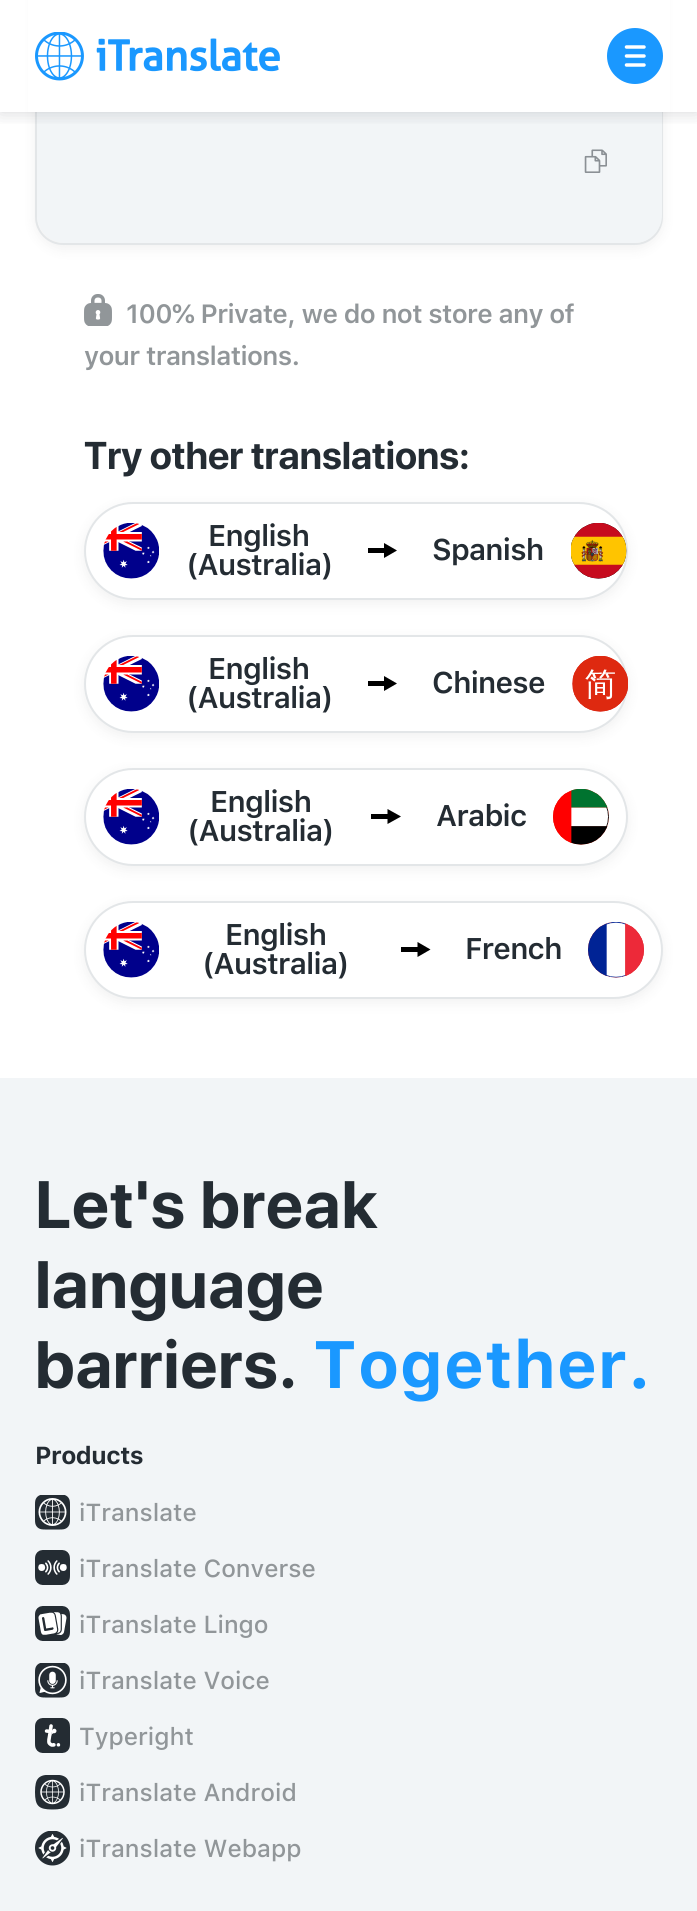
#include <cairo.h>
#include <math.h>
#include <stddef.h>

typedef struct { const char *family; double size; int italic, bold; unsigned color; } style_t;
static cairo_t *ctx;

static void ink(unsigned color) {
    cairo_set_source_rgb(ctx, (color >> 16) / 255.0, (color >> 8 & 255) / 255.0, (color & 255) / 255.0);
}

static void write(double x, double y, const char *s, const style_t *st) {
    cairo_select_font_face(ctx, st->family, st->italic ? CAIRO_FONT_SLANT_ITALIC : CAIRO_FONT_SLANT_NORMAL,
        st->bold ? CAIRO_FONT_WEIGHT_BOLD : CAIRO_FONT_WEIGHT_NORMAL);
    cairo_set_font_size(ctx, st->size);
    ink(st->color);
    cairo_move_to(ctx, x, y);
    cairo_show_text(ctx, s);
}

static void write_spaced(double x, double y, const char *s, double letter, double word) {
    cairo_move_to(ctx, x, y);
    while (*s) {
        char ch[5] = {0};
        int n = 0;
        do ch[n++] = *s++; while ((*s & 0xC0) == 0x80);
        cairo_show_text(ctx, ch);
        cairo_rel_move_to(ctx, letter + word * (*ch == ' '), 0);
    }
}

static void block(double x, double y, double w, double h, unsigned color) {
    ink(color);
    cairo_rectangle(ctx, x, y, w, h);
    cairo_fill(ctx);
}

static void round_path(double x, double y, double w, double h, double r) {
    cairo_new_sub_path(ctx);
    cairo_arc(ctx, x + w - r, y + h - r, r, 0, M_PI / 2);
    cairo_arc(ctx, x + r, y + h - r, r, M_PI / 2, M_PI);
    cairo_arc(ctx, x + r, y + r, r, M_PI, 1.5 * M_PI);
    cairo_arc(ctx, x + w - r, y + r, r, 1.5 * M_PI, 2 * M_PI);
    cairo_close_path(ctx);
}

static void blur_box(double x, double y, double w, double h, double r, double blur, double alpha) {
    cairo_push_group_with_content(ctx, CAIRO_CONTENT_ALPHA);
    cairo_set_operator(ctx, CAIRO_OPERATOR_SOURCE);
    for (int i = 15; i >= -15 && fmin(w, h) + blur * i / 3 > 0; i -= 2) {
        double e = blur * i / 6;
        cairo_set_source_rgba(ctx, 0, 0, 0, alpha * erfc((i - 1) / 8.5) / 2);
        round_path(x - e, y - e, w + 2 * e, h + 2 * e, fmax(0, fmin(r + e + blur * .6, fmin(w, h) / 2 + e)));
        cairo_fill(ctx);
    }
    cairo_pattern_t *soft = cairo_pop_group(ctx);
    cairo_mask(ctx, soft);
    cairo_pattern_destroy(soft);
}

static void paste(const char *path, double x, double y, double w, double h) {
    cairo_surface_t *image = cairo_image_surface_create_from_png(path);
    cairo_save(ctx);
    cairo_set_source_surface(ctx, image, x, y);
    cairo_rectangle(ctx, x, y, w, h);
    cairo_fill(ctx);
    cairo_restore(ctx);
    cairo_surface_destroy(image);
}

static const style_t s1 = {"SF Pro Display", 38.5, 0, 1, 0x242c33};
static const style_t s2 = {"SF Pro Text Medium", 24.5, 0, 0, 0x919699};

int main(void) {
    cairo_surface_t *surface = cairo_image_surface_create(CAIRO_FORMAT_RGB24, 697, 1911);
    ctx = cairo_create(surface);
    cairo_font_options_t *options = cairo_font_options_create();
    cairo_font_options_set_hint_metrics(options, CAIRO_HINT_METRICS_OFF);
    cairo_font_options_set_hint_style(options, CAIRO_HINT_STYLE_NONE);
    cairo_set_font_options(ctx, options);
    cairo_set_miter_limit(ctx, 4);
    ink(0xffffff);
    cairo_paint(ctx);
    ink(0x000000);
    blur_box(35, -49, 628, 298, 28, 7, 0.06);
    round_path(36, -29, 626, 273, 27);
    ink(0xe3e6e8);
    cairo_stroke(ctx);
    ink(0xf2f5f7);
    cairo_new_path(ctx);
    cairo_move_to(ctx, 37, 42);
    cairo_line_to(ctx, 662, 42);
    cairo_line_to(ctx, 662, 215);
    cairo_curve_to(ctx, 662, 230.5, 649.5, 243, 634, 243);
    cairo_line_to(ctx, 65, 243);
    cairo_curve_to(ctx, 49.5, 243, 37, 230.5, 37, 215);
    cairo_close_path(ctx);
    cairo_fill(ctx);
    block(28, 0, 642, 112, 0xffffff);
    cairo_save(ctx);
    cairo_rectangle(ctx, 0, 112, 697, 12);
    cairo_clip(ctx);
    ink(0x242c33);
    blur_box(0, 0, 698, 112, 0, 9, 0.2);
    cairo_restore(ctx);
    paste("pic1.png", 35, 32, 245, 49);
    ink(0x1a98ff);
    cairo_arc(ctx, 635, 56, 28, 0, 2 * M_PI);
    cairo_fill(ctx);
    cairo_new_path(ctx);
    cairo_move_to(ctx, 626.5, 56);
    cairo_line_to(ctx, 644, 56);
    cairo_move_to(ctx, 626.5, 47);
    cairo_line_to(ctx, 644, 47);
    cairo_move_to(ctx, 626.5, 65);
    cairo_line_to(ctx, 644, 65);
    ink(0xffffff);
    cairo_set_line_width(ctx, 3.5);
    cairo_set_line_cap(ctx, CAIRO_LINE_CAP_ROUND);
    cairo_stroke(ctx);
    paste("pic2.png", 584, 149, 23, 24);
    paste("pic3.png", 84, 294, 28, 32);
    cairo_select_font_face(ctx, "SF Pro Text SemiBold", CAIRO_FONT_SLANT_NORMAL, CAIRO_FONT_WEIGHT_NORMAL);
    cairo_set_font_size(ctx, 26.25);
    ink(0x919699);
    write_spaced(126, 323, "100% Private, we do not store any of", -0.65, 0);
    write_spaced(84, 365, "your translations.", -0.65, 0);
    write(84, 469, "Try other translations:", &s1);
    ink(0x000000);
    blur_box(84, 506, 544, 98, 49, 7, 0.06);
    ink(0xffffff);
    round_path(85, 503, 542, 96, 48);
    cairo_fill_preserve(ctx);
    ink(0xe3e6e8);
    cairo_set_line_width(ctx, 2);
    cairo_set_line_cap(ctx, CAIRO_LINE_CAP_BUTT);
    cairo_stroke(ctx);
    paste("pic4.png", 103, 523, 56, 56);
    cairo_select_font_face(ctx, "SF Pro Text SemiBold", CAIRO_FONT_SLANT_NORMAL, CAIRO_FONT_WEIGHT_NORMAL);
    cairo_set_font_size(ctx, 29.75);
    ink(0x242c33);
    write_spaced(208, 546, "English", -0.75, 0);
    write_spaced(186, 575, "(Australia)", -0.75, 0);
    block(368, 548, 18, 5, 0x000000);
    cairo_new_path(ctx);
    cairo_move_to(ctx, 397, 550.5);
    cairo_line_to(ctx, 384, 558);
    cairo_line_to(ctx, 384, 543);
    cairo_close_path(ctx);
    cairo_fill(ctx);
    ink(0x242c33);
    write_spaced(432, 560, "Spanish", -0.75, 0);
    paste("pic5.png", 571, 523, 56, 56);
    ink(0x000000);
    blur_box(84, 639, 544, 98, 49, 7, 0.06);
    ink(0xffffff);
    round_path(85, 636, 542, 96, 48);
    cairo_fill_preserve(ctx);
    ink(0xe3e6e8);
    cairo_stroke(ctx);
    paste("pic4.png", 103, 656, 56, 56);
    ink(0x242c33);
    write_spaced(208, 679, "English", -0.75, 0);
    write_spaced(186, 708, "(Australia)", -0.75, 0);
    block(368, 681, 18, 5, 0x000000);
    cairo_new_path(ctx);
    cairo_move_to(ctx, 397, 683.5);
    cairo_line_to(ctx, 384, 691);
    cairo_line_to(ctx, 384, 676);
    cairo_close_path(ctx);
    cairo_fill(ctx);
    ink(0x242c33);
    write_spaced(432, 693, "Chinese", -0.75, 0);
    paste("pic6.png", 572, 656, 56, 56);
    ink(0x000000);
    blur_box(84, 772, 544, 98, 49, 7, 0.06);
    ink(0xffffff);
    round_path(85, 769, 542, 96, 48);
    cairo_fill_preserve(ctx);
    ink(0xe3e6e8);
    cairo_stroke(ctx);
    paste("pic4.png", 103, 789, 56, 56);
    ink(0x242c33);
    write_spaced(210, 812, "English", -0.75, 0);
    write_spaced(187, 841, "(Australia)", -0.75, 0);
    block(371, 814, 18, 5, 0x000000);
    cairo_new_path(ctx);
    cairo_move_to(ctx, 401, 816.5);
    cairo_line_to(ctx, 387.5, 824);
    cairo_line_to(ctx, 387.5, 809);
    cairo_close_path(ctx);
    cairo_fill(ctx);
    ink(0x242c33);
    write_spaced(436, 826, "Arabic", -0.75, 0);
    paste("pic7.png", 553, 789, 56, 56);
    ink(0x000000);
    blur_box(84, 905, 579, 98, 49, 7, 0.06);
    ink(0xffffff);
    round_path(85, 902, 577, 96, 48);
    cairo_fill_preserve(ctx);
    ink(0xe3e6e8);
    cairo_stroke(ctx);
    paste("pic4.png", 103, 922, 56, 56);
    ink(0x242c33);
    write_spaced(225, 945, "English", -0.75, 0);
    write_spaced(202, 974, "(Australia)", -0.75, 0);
    block(401, 947, 18, 5, 0x000000);
    cairo_new_path(ctx);
    cairo_move_to(ctx, 430.5, 949.5);
    cairo_line_to(ctx, 417.5, 957);
    cairo_line_to(ctx, 417.5, 942);
    cairo_close_path(ctx);
    cairo_fill(ctx);
    ink(0x242c33);
    write_spaced(465, 959, "French", -0.75, 0);
    paste("pic8.png", 588, 922, 56, 56);
    block(0, 1078, 697, 833, 0xf2f5f7);
    cairo_select_font_face(ctx, "SF Pro Display", CAIRO_FONT_SLANT_NORMAL, CAIRO_FONT_WEIGHT_BOLD);
    cairo_set_font_size(ctx, 66.5);
    ink(0x242c33);
    write_spaced(35, 1228, "Let's break", 1, 0);
    write_spaced(35, 1308, "language", 1, 0);
    write_spaced(35, 1388, "barriers.", 1, 0);
    cairo_select_font_face(ctx, "SF Pro Text", CAIRO_FONT_SLANT_NORMAL, CAIRO_FONT_WEIGHT_BOLD);
    ink(0x1a98ff);
    write_spaced(313, 1388, "Together.", 1, 0);
    cairo_set_font_size(ctx, 24.5);
    ink(0x242c33);
    write_spaced(35, 1464, "Products", -0.5, 0);
    paste("pic9.png", 35, 1495, 35, 35);
    write(79, 1521, "iTranslate", &s2);
    paste("pic10.png", 35, 1550, 35, 35);
    write(79, 1577, "iTranslate Converse", &s2);
    paste("pic11.png", 35, 1606, 35, 35);
    write(79, 1633, "iTranslate Lingo", &s2);
    paste("pic12.png", 35, 1663, 35, 35);
    write(79, 1689, "iTranslate Voice", &s2);
    paste("pic13.png", 35, 1718, 35, 35);
    write(79, 1745, "Typeright", &s2);
    paste("pic14.png", 35, 1775, 35, 35);
    write(79, 1801, "iTranslate Android", &s2);
    paste("pic15.png", 35, 1831, 35, 35);
    write(79, 1857, "iTranslate Webapp", &s2);
    cairo_surface_write_to_png(surface, "screenshot.png");
    cairo_font_options_destroy(options);
    cairo_destroy(ctx);
    cairo_surface_destroy(surface);
    return 0;
}
